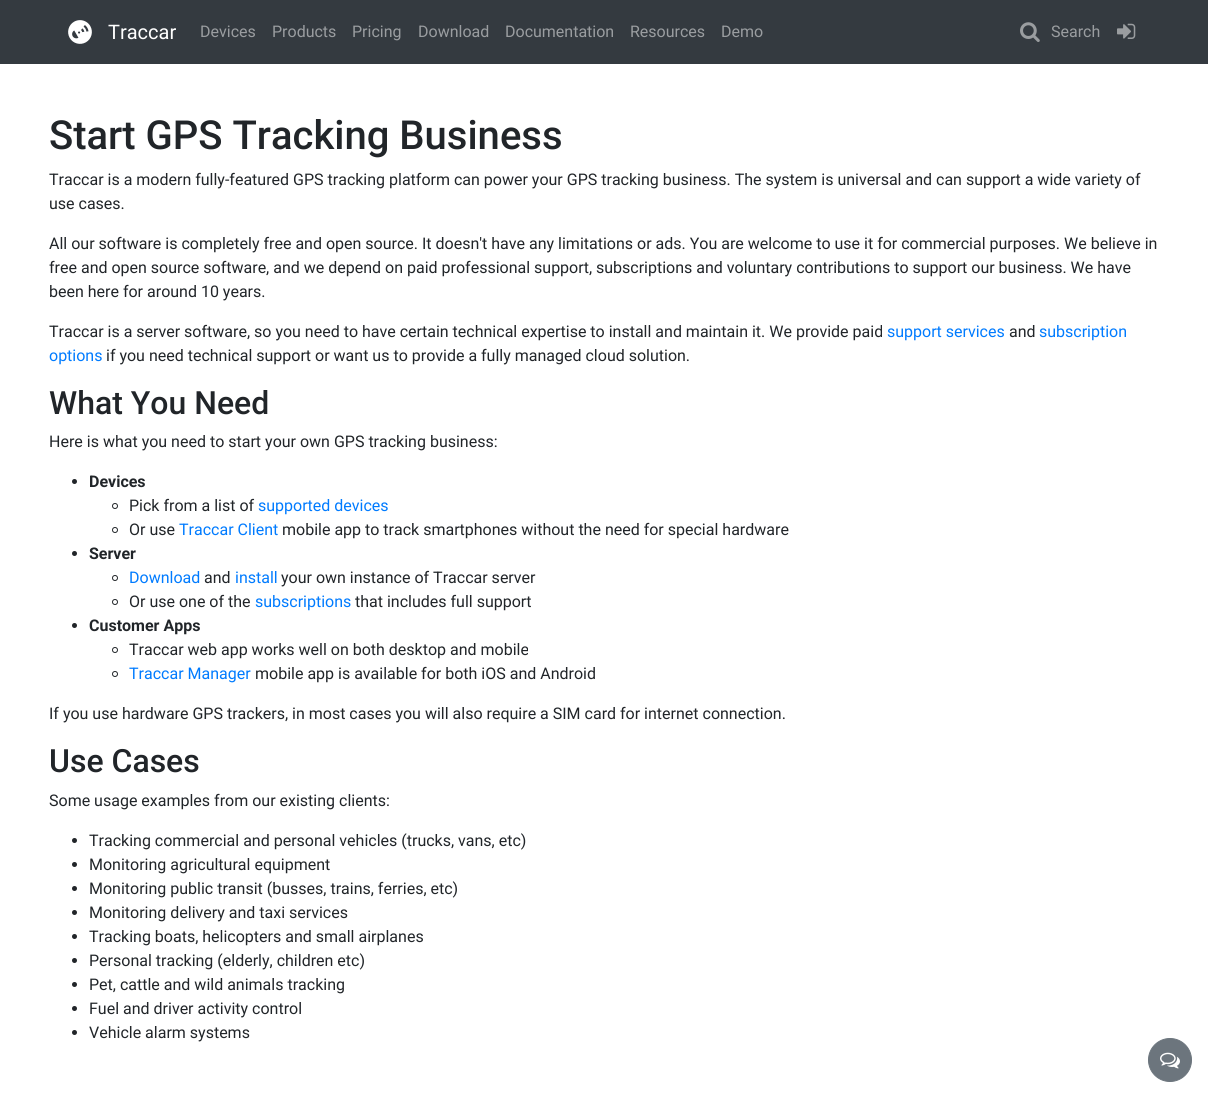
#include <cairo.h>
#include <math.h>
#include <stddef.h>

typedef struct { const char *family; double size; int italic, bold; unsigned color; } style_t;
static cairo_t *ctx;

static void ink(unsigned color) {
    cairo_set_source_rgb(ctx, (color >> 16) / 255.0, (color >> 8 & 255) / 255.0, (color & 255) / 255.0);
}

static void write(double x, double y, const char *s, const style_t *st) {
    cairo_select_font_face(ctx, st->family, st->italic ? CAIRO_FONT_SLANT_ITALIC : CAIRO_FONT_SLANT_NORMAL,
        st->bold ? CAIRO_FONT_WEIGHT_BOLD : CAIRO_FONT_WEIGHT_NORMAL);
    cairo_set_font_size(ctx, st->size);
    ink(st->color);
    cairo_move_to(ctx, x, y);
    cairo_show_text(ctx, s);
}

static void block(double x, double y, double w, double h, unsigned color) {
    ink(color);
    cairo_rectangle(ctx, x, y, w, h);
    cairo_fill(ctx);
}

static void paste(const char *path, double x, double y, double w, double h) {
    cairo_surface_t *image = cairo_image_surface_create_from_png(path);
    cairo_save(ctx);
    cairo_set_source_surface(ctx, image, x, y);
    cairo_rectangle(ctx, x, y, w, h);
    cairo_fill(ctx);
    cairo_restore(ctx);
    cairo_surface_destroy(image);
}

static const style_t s1 = {"Roboto", 20, 0, 0, 0xffffff};
static const style_t s2 = {"Roboto", 16, 0, 0, 0x9a9da0};
static const style_t s3 = {"Roboto Medium", 40, 0, 0, 0x212529};
static const style_t s4 = {"Roboto", 16, 0, 0, 0x212529};
static const style_t s5 = {"Roboto", 16, 0, 0, 0x007bff};
static const style_t s6 = {"Roboto Medium", 32, 0, 0, 0x212529};
static const style_t s7 = {"Roboto", 16, 0, 1, 0x212529};

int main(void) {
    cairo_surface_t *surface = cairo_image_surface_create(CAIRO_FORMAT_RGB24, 1208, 1098);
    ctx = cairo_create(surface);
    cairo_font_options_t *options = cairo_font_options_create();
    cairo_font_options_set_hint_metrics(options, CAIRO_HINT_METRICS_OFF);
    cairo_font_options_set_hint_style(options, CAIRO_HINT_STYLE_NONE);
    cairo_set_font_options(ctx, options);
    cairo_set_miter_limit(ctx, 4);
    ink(0x343a40);
    cairo_paint(ctx);
    paste("pic1.png", 68, 20, 24, 24);
    write(108, 39, "Traccar", &s1);
    write(200, 37, "Devices", &s2);
    write(272, 37, "Products", &s2);
    write(352, 37, "Pricing", &s2);
    write(418, 37, "Download", &s2);
    write(505, 37, "Documentation", &s2);
    write(630, 37, "Resources", &s2);
    write(721, 37, "Demo", &s2);
    paste("pic2.png", 1020, 22, 20, 20);
    write(1051, 37, "Search", &s2);
    paste("pic3.png", 1117, 23, 19, 16);
    block(0, 64, 1208, 1034, 0xffffff);
    write(49, 149, "Start GPS Tracking Business", &s3);
    write(49, 185, "Traccar is a modern fully-featured GPS tracking platform can power your GPS tracking business. The system is universal and can support a wide variety of", &s4);
    write(49, 209, "use cases.", &s4);
    write(49, 249, "All our software is completely free and open source. It doesn't have any limitations or ads. You are welcome to use it for commercial purposes. We believe in", &s4);
    write(49, 273, "free and open source software, and we depend on paid professional support, subscriptions and voluntary contributions to support our business. We have", &s4);
    write(49, 297, "been here for around 10 years.", &s4);
    write(49, 337, "Traccar is a server software, so you need to have certain technical expertise to install and maintain it. We provide paid", &s4);
    write(887, 337, "support services", &s5);
    write(1009, 337, "and", &s4);
    write(1039, 337, "subscription", &s5);
    write(49, 361, "options", &s5);
    write(106, 361, "if you need technical support or want us to provide a fully managed cloud solution.", &s4);
    write(49, 414, "What You Need", &s6);
    write(49, 447, "Here is what you need to start your own GPS tracking business:", &s4);
    cairo_new_path(ctx);
    cairo_arc(ctx, 74.5, 481.5, 2.5, 0, 2 * M_PI);
    cairo_fill(ctx);
    write(89, 487, "Devices", &s7);
    cairo_new_path(ctx);
    cairo_arc(ctx, 115, 506, 2.5, 0, 2 * M_PI);
    cairo_set_line_width(ctx, 1);
    cairo_stroke(ctx);
    write(129, 511, "Pick from a list of", &s4);
    write(258, 511, "supported devices", &s5);
    cairo_new_path(ctx);
    cairo_arc(ctx, 115, 530, 2.5, 0, 2 * M_PI);
    ink(0x212529);
    cairo_stroke(ctx);
    write(129, 535, "Or use", &s4);
    write(179, 535, "Traccar Client", &s5);
    write(282, 535, "mobile app to track smartphones without the need for special hardware", &s4);
    cairo_new_path(ctx);
    cairo_arc(ctx, 74.5, 553.5, 2.5, 0, 2 * M_PI);
    cairo_fill(ctx);
    write(89, 559, "Server", &s7);
    cairo_new_path(ctx);
    cairo_arc(ctx, 115, 578, 2.5, 0, 2 * M_PI);
    cairo_stroke(ctx);
    write(129, 583, "Download", &s5);
    write(204, 583, "and", &s4);
    write(235, 583, "install", &s5);
    write(281, 583, "your own instance of Traccar server", &s4);
    cairo_new_path(ctx);
    cairo_arc(ctx, 115, 602, 2.5, 0, 2 * M_PI);
    cairo_stroke(ctx);
    write(129, 607, "Or use one of the", &s4);
    write(255, 607, "subscriptions", &s5);
    write(355, 607, "that includes full support", &s4);
    cairo_new_path(ctx);
    cairo_arc(ctx, 74.5, 625.5, 2.5, 0, 2 * M_PI);
    cairo_fill(ctx);
    write(89, 631, "Customer Apps", &s7);
    cairo_new_path(ctx);
    cairo_arc(ctx, 115, 650, 2.5, 0, 2 * M_PI);
    cairo_stroke(ctx);
    write(129, 655, "Traccar web app works well on both desktop and mobile", &s4);
    cairo_new_path(ctx);
    cairo_arc(ctx, 115, 674, 2.5, 0, 2 * M_PI);
    cairo_stroke(ctx);
    write(129, 679, "Traccar Manager", &s5);
    write(255, 679, "mobile app is available for both iOS and Android", &s4);
    write(49, 719, "If you use hardware GPS trackers, in most cases you will also require a SIM card for internet connection.", &s4);
    write(49, 772, "Use Cases", &s6);
    write(49, 806, "Some usage examples from our existing clients:", &s4);
    cairo_new_path(ctx);
    cairo_arc(ctx, 74.5, 840.5, 2.5, 0, 2 * M_PI);
    cairo_fill(ctx);
    write(89, 846, "Tracking commercial and personal vehicles (trucks, vans, etc)", &s4);
    cairo_new_path(ctx);
    cairo_arc(ctx, 74.5, 864.5, 2.5, 0, 2 * M_PI);
    cairo_fill(ctx);
    write(89, 870, "Monitoring agricultural equipment", &s4);
    cairo_new_path(ctx);
    cairo_arc(ctx, 74.5, 888.5, 2.5, 0, 2 * M_PI);
    cairo_fill(ctx);
    write(89, 894, "Monitoring public transit (busses, trains, ferries, etc)", &s4);
    cairo_new_path(ctx);
    cairo_arc(ctx, 74.5, 912.5, 2.5, 0, 2 * M_PI);
    cairo_fill(ctx);
    write(89, 918, "Monitoring delivery and taxi services", &s4);
    cairo_new_path(ctx);
    cairo_arc(ctx, 74.5, 936.5, 2.5, 0, 2 * M_PI);
    cairo_fill(ctx);
    write(89, 942, "Tracking boats, helicopters and small airplanes", &s4);
    cairo_new_path(ctx);
    cairo_arc(ctx, 74.5, 960.5, 2.5, 0, 2 * M_PI);
    cairo_fill(ctx);
    write(89, 966, "Personal tracking (elderly, children etc)", &s4);
    cairo_new_path(ctx);
    cairo_arc(ctx, 74.5, 984.5, 2.5, 0, 2 * M_PI);
    cairo_fill(ctx);
    write(89, 990, "Pet, cattle and wild animals tracking", &s4);
    cairo_new_path(ctx);
    cairo_arc(ctx, 74.5, 1008.5, 2.5, 0, 2 * M_PI);
    cairo_fill(ctx);
    write(89, 1014, "Fuel and driver activity control", &s4);
    cairo_new_path(ctx);
    cairo_arc(ctx, 74.5, 1032.5, 2.5, 0, 2 * M_PI);
    cairo_fill(ctx);
    write(89, 1038, "Vehicle alarm systems", &s4);
    ink(0x6c757d);
    cairo_new_path(ctx);
    cairo_arc(ctx, 1170, 1060, 21.5, 0, 2 * M_PI);
    cairo_fill_preserve(ctx);
    cairo_stroke(ctx);
    paste("pic4.png", 1160, 1052, 20, 17);
    cairo_surface_write_to_png(surface, "screenshot.png");
    cairo_font_options_destroy(options);
    cairo_destroy(ctx);
    cairo_surface_destroy(surface);
    return 0;
}
